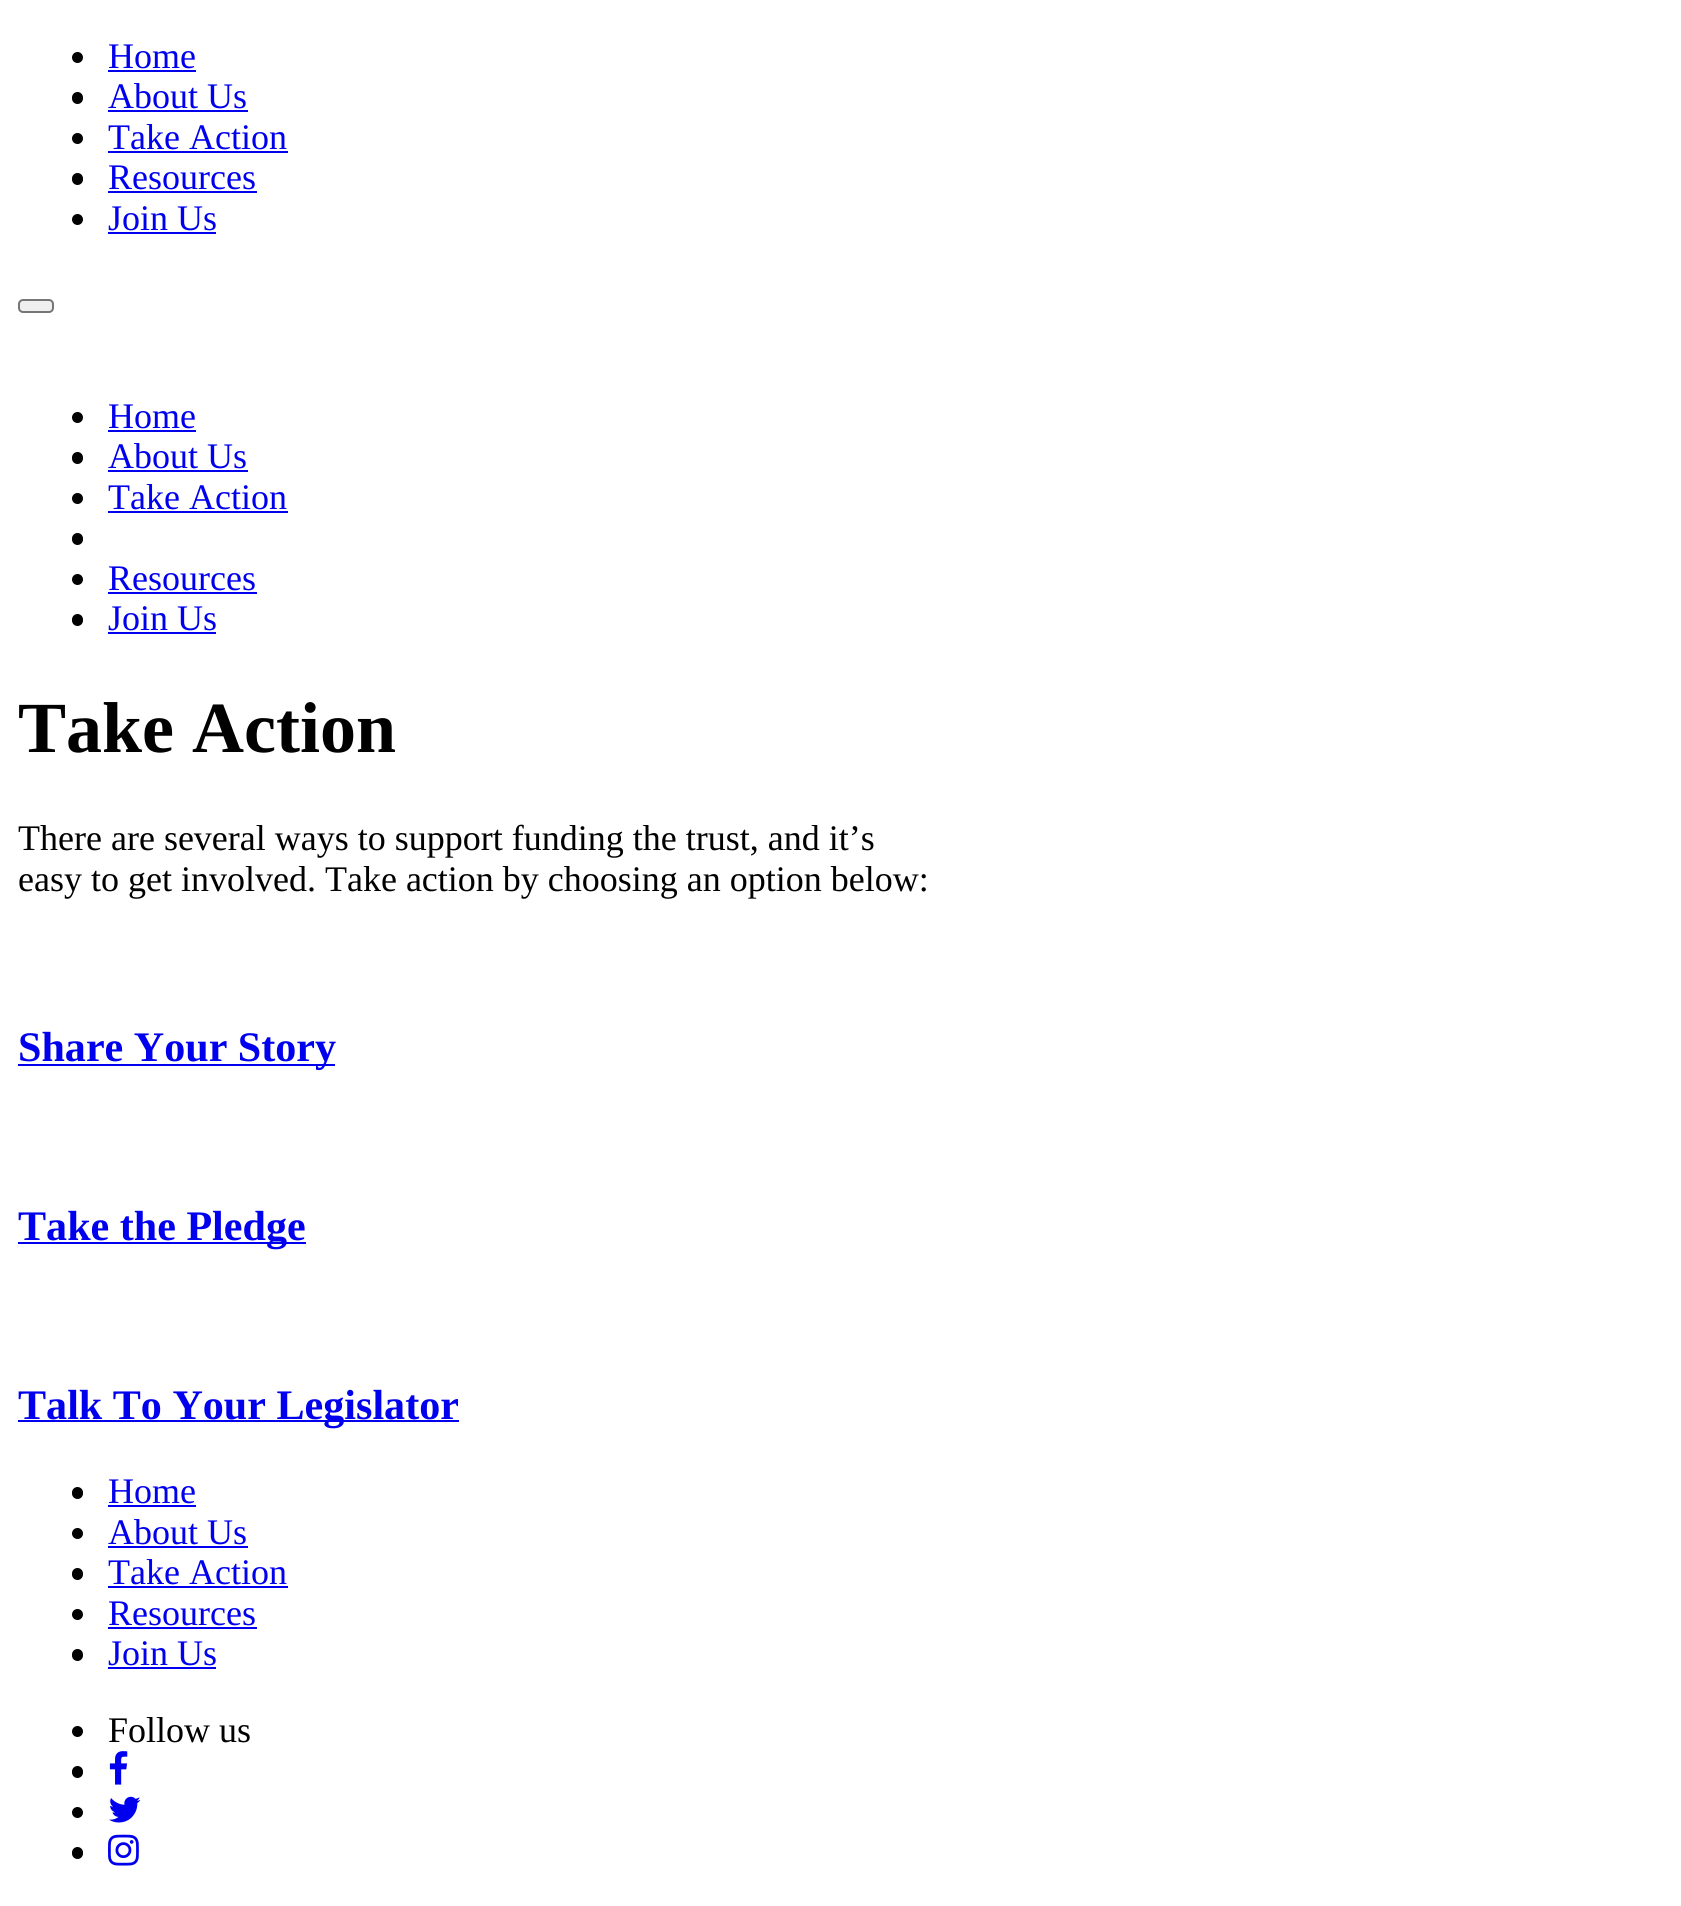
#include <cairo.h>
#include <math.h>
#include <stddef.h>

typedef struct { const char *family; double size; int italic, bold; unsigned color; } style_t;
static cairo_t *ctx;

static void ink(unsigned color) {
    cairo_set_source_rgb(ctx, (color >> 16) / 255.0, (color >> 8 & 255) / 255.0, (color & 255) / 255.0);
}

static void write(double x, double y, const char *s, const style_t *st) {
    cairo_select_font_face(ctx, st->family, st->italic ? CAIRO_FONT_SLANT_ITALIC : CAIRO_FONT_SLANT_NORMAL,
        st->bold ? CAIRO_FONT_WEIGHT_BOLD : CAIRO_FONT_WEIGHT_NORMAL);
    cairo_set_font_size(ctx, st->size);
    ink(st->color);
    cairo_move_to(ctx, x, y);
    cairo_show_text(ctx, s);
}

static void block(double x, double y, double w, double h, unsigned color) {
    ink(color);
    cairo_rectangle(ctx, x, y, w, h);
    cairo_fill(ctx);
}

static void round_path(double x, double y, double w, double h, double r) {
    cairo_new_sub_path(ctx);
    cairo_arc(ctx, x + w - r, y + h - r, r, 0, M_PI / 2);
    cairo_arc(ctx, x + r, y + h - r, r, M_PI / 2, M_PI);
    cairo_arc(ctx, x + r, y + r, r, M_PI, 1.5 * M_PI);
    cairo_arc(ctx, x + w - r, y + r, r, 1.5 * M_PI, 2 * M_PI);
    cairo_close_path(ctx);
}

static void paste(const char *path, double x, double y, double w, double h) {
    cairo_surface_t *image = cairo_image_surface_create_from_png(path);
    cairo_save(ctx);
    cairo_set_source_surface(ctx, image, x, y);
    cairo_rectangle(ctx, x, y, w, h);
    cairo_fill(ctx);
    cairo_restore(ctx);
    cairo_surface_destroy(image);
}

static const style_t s1 = {"Liberation Serif", 36, 0, 0, 0x0000ee};
static const style_t s2 = {"Liberation Serif", 72, 0, 1, 0x000000};
static const style_t s3 = {"Liberation Serif", 36, 0, 0, 0x000000};
static const style_t s4 = {"Liberation Serif", 42.1, 0, 1, 0x0000ee};

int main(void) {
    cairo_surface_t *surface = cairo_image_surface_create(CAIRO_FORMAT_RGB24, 1681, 1906);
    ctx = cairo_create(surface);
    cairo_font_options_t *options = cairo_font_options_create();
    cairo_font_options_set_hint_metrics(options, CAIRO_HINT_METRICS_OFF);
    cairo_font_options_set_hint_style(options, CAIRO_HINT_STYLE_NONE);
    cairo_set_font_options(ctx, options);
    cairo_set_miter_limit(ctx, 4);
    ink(0xffffff);
    cairo_paint(ctx);
    ink(0x000000);
    cairo_arc(ctx, 77.5, 57.5, 5.5, 0, 2 * M_PI);
    cairo_fill(ctx);
    write(108, 68, "Home", &s1);
    block(108, 70, 88, 2, 0x0000ee);
    ink(0x000000);
    round_path(72, 92, 11, 12, 5.5);
    cairo_fill(ctx);
    write(108, 108, "About Us", &s1);
    block(108, 110, 140, 2, 0x0000ee);
    ink(0x000000);
    cairo_new_path(ctx);
    cairo_arc(ctx, 77.5, 138.5, 5.5, 0, 2 * M_PI);
    cairo_fill(ctx);
    write(108, 149, "Take Action", &s1);
    block(108, 151, 180, 2, 0x0000ee);
    ink(0x000000);
    round_path(72, 173, 11, 12, 5.5);
    cairo_fill(ctx);
    write(108, 189, "Resources", &s1);
    block(108, 191, 149, 2, 0x0000ee);
    ink(0x000000);
    cairo_new_path(ctx);
    cairo_arc(ctx, 77.5, 219.5, 5.5, 0, 2 * M_PI);
    cairo_fill(ctx);
    write(108, 230, "Join Us", &s1);
    block(108, 232, 108, 2, 0x0000ee);
    ink(0xefefef);
    round_path(19, 300, 34, 12, 4);
    cairo_fill_preserve(ctx);
    ink(0x767676);
    cairo_stroke(ctx);
    ink(0x000000);
    cairo_arc(ctx, 77.5, 417.5, 5.5, 0, 2 * M_PI);
    cairo_fill(ctx);
    write(108, 428, "Home", &s1);
    block(108, 430, 88, 2, 0x0000ee);
    ink(0x000000);
    round_path(72, 452, 11, 12, 5.5);
    cairo_fill(ctx);
    write(108, 468, "About Us", &s1);
    block(108, 470, 140, 2, 0x0000ee);
    ink(0x000000);
    cairo_new_path(ctx);
    cairo_arc(ctx, 77.5, 498.5, 5.5, 0, 2 * M_PI);
    cairo_fill(ctx);
    write(108, 509, "Take Action", &s1);
    block(108, 511, 180, 2, 0x0000ee);
    ink(0x000000);
    round_path(72, 533, 11, 12, 5.5);
    cairo_fill(ctx);
    cairo_arc(ctx, 77.5, 579.5, 5.5, 0, 2 * M_PI);
    cairo_fill(ctx);
    write(108, 590, "Resources", &s1);
    block(108, 592, 149, 2, 0x0000ee);
    ink(0x000000);
    round_path(72, 614, 11, 12, 5.5);
    cairo_fill(ctx);
    write(108, 630, "Join Us", &s1);
    block(108, 632, 108, 2, 0x0000ee);
    write(18, 752, "Take Action", &s2);
    write(18, 850, "There are several ways to support funding the trust, and it’s", &s3);
    write(18, 891, "easy to get involved. Take action by choosing an option below:", &s3);
    block(18, 1064, 317, 2, 0x0000ee);
    write(18, 1061, "Share Your Story", &s4);
    block(18, 1242, 288, 2, 0x0000ee);
    write(18, 1240, "Take the Pledge", &s4);
    block(18, 1420, 441, 2, 0x0000ee);
    write(18, 1419, "Talk To Your Legislator", &s4);
    ink(0x000000);
    round_path(72, 1487, 11, 12, 5.5);
    cairo_fill(ctx);
    write(108, 1503, "Home", &s1);
    block(108, 1505, 88, 2, 0x0000ee);
    ink(0x000000);
    cairo_new_path(ctx);
    cairo_arc(ctx, 77.5, 1533.5, 5.5, 0, 2 * M_PI);
    cairo_fill(ctx);
    write(108, 1544, "About Us", &s1);
    block(108, 1546, 140, 2, 0x0000ee);
    ink(0x000000);
    round_path(72, 1568, 11, 12, 5.5);
    cairo_fill(ctx);
    write(108, 1584, "Take Action", &s1);
    block(108, 1586, 180, 2, 0x0000ee);
    ink(0x000000);
    cairo_new_path(ctx);
    cairo_arc(ctx, 77.5, 1614.5, 5.5, 0, 2 * M_PI);
    cairo_fill(ctx);
    write(108, 1625, "Resources", &s1);
    block(108, 1627, 149, 2, 0x0000ee);
    ink(0x000000);
    round_path(72, 1649, 11, 12, 5.5);
    cairo_fill(ctx);
    write(108, 1665, "Join Us", &s1);
    block(108, 1667, 108, 2, 0x0000ee);
    ink(0x000000);
    cairo_new_path(ctx);
    cairo_arc(ctx, 77.5, 1731.5, 5.5, 0, 2 * M_PI);
    cairo_fill(ctx);
    write(108, 1742, "Follow us", &s3);
    round_path(72, 1766, 11, 12, 5.5);
    cairo_fill(ctx);
    paste("pic1.png", 109, 1751, 19, 34);
    cairo_arc(ctx, 77.5, 1812.5, 5.5, 0, 2 * M_PI);
    cairo_fill(ctx);
    paste("pic2.png", 109, 1796, 32, 27);
    round_path(72, 1847, 11, 12, 5.5);
    cairo_fill(ctx);
    paste("pic3.png", 108, 1834, 31, 32);
    cairo_surface_write_to_png(surface, "screenshot.png");
    cairo_font_options_destroy(options);
    cairo_destroy(ctx);
    cairo_surface_destroy(surface);
    return 0;
}
